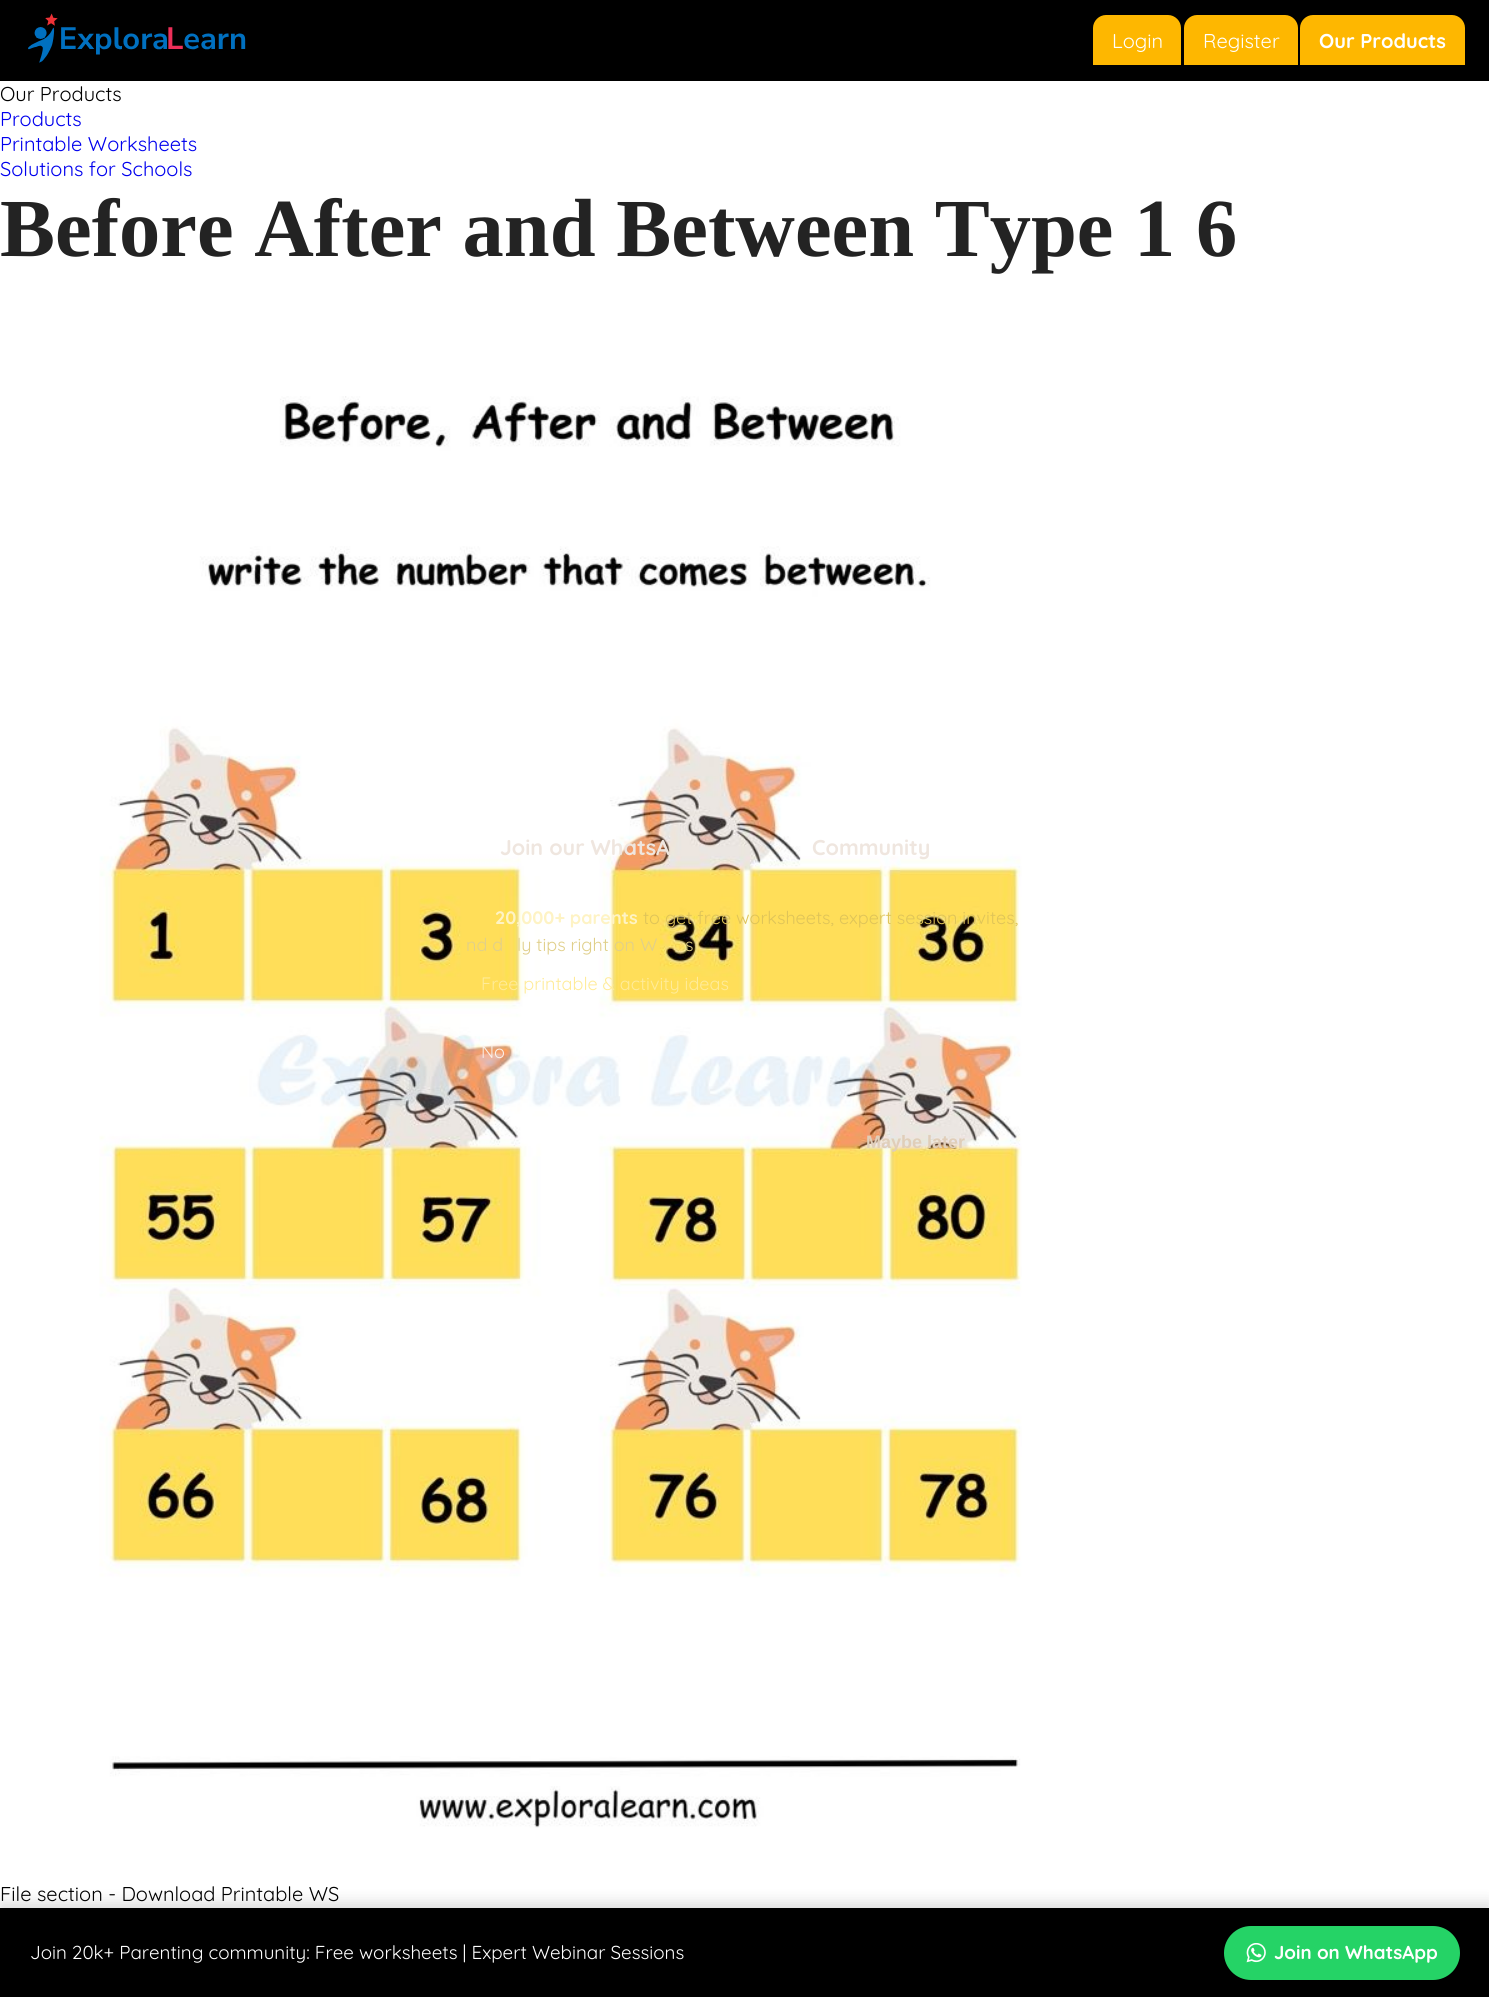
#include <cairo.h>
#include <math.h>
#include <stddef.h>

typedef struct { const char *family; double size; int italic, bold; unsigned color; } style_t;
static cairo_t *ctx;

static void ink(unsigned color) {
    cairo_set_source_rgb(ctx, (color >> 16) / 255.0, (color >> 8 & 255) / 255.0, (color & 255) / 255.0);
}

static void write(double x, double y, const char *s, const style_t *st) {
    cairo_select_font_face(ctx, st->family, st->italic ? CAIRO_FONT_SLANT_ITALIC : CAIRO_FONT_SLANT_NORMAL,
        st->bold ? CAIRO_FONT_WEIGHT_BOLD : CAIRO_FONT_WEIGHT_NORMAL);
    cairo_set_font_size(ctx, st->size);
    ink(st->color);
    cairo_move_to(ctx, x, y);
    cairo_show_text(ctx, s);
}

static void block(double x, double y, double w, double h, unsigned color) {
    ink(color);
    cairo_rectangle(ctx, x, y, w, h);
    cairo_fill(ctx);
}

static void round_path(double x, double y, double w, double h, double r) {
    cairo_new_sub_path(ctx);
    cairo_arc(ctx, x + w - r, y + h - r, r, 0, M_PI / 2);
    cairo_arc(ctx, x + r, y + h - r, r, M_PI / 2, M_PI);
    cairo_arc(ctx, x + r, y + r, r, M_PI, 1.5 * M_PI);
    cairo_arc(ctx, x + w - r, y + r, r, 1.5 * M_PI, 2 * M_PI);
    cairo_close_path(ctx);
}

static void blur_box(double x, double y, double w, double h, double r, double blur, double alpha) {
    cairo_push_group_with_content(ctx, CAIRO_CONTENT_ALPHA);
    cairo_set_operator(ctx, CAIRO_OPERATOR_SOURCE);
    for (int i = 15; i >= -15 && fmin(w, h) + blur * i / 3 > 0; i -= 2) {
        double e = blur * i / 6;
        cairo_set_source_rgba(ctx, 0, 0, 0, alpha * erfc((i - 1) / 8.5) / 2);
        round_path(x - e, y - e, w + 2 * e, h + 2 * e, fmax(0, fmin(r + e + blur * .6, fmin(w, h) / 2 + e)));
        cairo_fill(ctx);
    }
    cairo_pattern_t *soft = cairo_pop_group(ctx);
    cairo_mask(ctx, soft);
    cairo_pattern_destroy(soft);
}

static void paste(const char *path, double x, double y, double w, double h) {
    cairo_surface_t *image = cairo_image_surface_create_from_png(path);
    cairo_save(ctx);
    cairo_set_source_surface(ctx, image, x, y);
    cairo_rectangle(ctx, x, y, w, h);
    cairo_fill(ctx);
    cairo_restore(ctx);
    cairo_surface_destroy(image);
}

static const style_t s1 = {"Quicksand", 20, 0, 0, 0xffffff};
static const style_t s2 = {"Quicksand", 20, 0, 1, 0xffffff};
static const style_t s3 = {"Quicksand", 20, 0, 0, 0x000000};
static const style_t s4 = {"Quicksand", 20, 0, 0, 0x0000ee};
static const style_t s5 = {"Liberation Serif", 82.5, 0, 1, 0x232323};
static const style_t s6 = {"Quicksand", 21.5, 0, 1, 0xefe6df};
static const style_t s7 = {"Quicksand", 18, 0, 1, 0xfef3c4};
static const style_t s8 = {"Quicksand", 18, 0, 0, 0xdfc458};
static const style_t s9 = {"Quicksand", 18, 0, 0, 0xe0cf8a};
static const style_t s10 = {"Quicksand", 18, 0, 0, 0xffeb99};
static const style_t s11 = {"Quicksand", 18, 0, 0, 0xf9f2ed};
static const style_t s12 = {"Liberation Sans", 18, 0, 1, 0xe0ceb9};
static const style_t s13 = {"Quicksand", 18.75, 0, 0, 0xffffff};
static const style_t s14 = {"Quicksand", 18.75, 0, 1, 0xffffff};

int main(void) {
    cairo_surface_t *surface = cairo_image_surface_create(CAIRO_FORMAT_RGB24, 1489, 1997);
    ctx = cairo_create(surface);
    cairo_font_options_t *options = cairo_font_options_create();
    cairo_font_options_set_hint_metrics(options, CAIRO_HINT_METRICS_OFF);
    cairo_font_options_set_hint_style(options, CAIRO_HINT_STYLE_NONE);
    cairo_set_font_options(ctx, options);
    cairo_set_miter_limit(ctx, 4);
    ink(0xffffff);
    cairo_paint(ctx);
    block(0, 0, 1489, 81, 0x000000);
    paste("pic1.png", 28, 13, 218, 50);
    ink(0xfeb700);
    cairo_new_path(ctx);
    cairo_move_to(ctx, 1106, 15);
    cairo_line_to(ctx, 1168, 15);
    cairo_curve_to(ctx, 1175, 15, 1181, 21, 1181, 28);
    cairo_line_to(ctx, 1181, 65);
    cairo_line_to(ctx, 1093, 65);
    cairo_line_to(ctx, 1093, 28);
    cairo_curve_to(ctx, 1093, 21, 1099, 15, 1106, 15);
    cairo_close_path(ctx);
    cairo_fill(ctx);
    write(1112, 48, "Login", &s1);
    ink(0xfeb700);
    cairo_new_path(ctx);
    cairo_move_to(ctx, 1197, 15);
    cairo_line_to(ctx, 1285, 15);
    cairo_curve_to(ctx, 1292, 15, 1298, 21, 1298, 28);
    cairo_line_to(ctx, 1298, 65);
    cairo_line_to(ctx, 1184, 65);
    cairo_line_to(ctx, 1184, 28);
    cairo_curve_to(ctx, 1184, 21, 1190, 15, 1197, 15);
    cairo_close_path(ctx);
    cairo_fill(ctx);
    write(1203, 48, "Register", &s1);
    ink(0xfeb700);
    cairo_new_path(ctx);
    cairo_move_to(ctx, 1313, 15);
    cairo_line_to(ctx, 1452, 15);
    cairo_curve_to(ctx, 1459, 15, 1465, 21, 1465, 28);
    cairo_line_to(ctx, 1465, 65);
    cairo_line_to(ctx, 1300, 65);
    cairo_line_to(ctx, 1300, 28);
    cairo_curve_to(ctx, 1300, 21, 1306, 15, 1313, 15);
    cairo_close_path(ctx);
    cairo_fill(ctx);
    write(1319, 48, "Our Products", &s2);
    write(0, 101, "Our Products", &s3);
    write(0, 126, "Products", &s4);
    write(0, 151, "Printable Worksheets", &s4);
    write(0, 176, "Solutions for Schools", &s4);
    write(0, 256, "Before After and Between Type 1 6", &s5);
    paste("pic2.png", 99, 396, 923, 1432);
    write(0, 1901, "File section - Download Printable WS", &s3);
    write(500, 855, "Join our WhatsA", &s6);
    write(812, 855, "Community", &s6);
    write(495, 924, "20,000+ parents", &s7);
    write(643, 924, "to get free worksheets, expert session invites,", &s8);
    write(466, 951, "nd d", &s9);
    write(517, 951, "ly tips right on W", &s9);
    write(685, 951, "s", &s9);
    write(481, 990, "Free printable & activity ideas", &s10);
    write(481, 1058, "No", &s11);
    write(866, 1148, "Maybe later", &s12);
    ink(0x000000);
    blur_box(0, 1903, 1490, 90, 0, 7.5, 0.15);
    block(0, 1908, 1489, 89, 0x000000);
    write(30, 1959, "Join 20k+ Parenting community: Free worksheets | Expert Webinar Sessions", &s13);
    ink(0x25d366);
    round_path(1224, 1926, 236, 54, 27);
    cairo_fill(ctx);
    paste("pic3.png", 1246, 1943, 20, 20);
    write(1274, 1959, "Join on WhatsApp", &s14);
    cairo_surface_write_to_png(surface, "screenshot.png");
    cairo_font_options_destroy(options);
    cairo_destroy(ctx);
    cairo_surface_destroy(surface);
    return 0;
}
